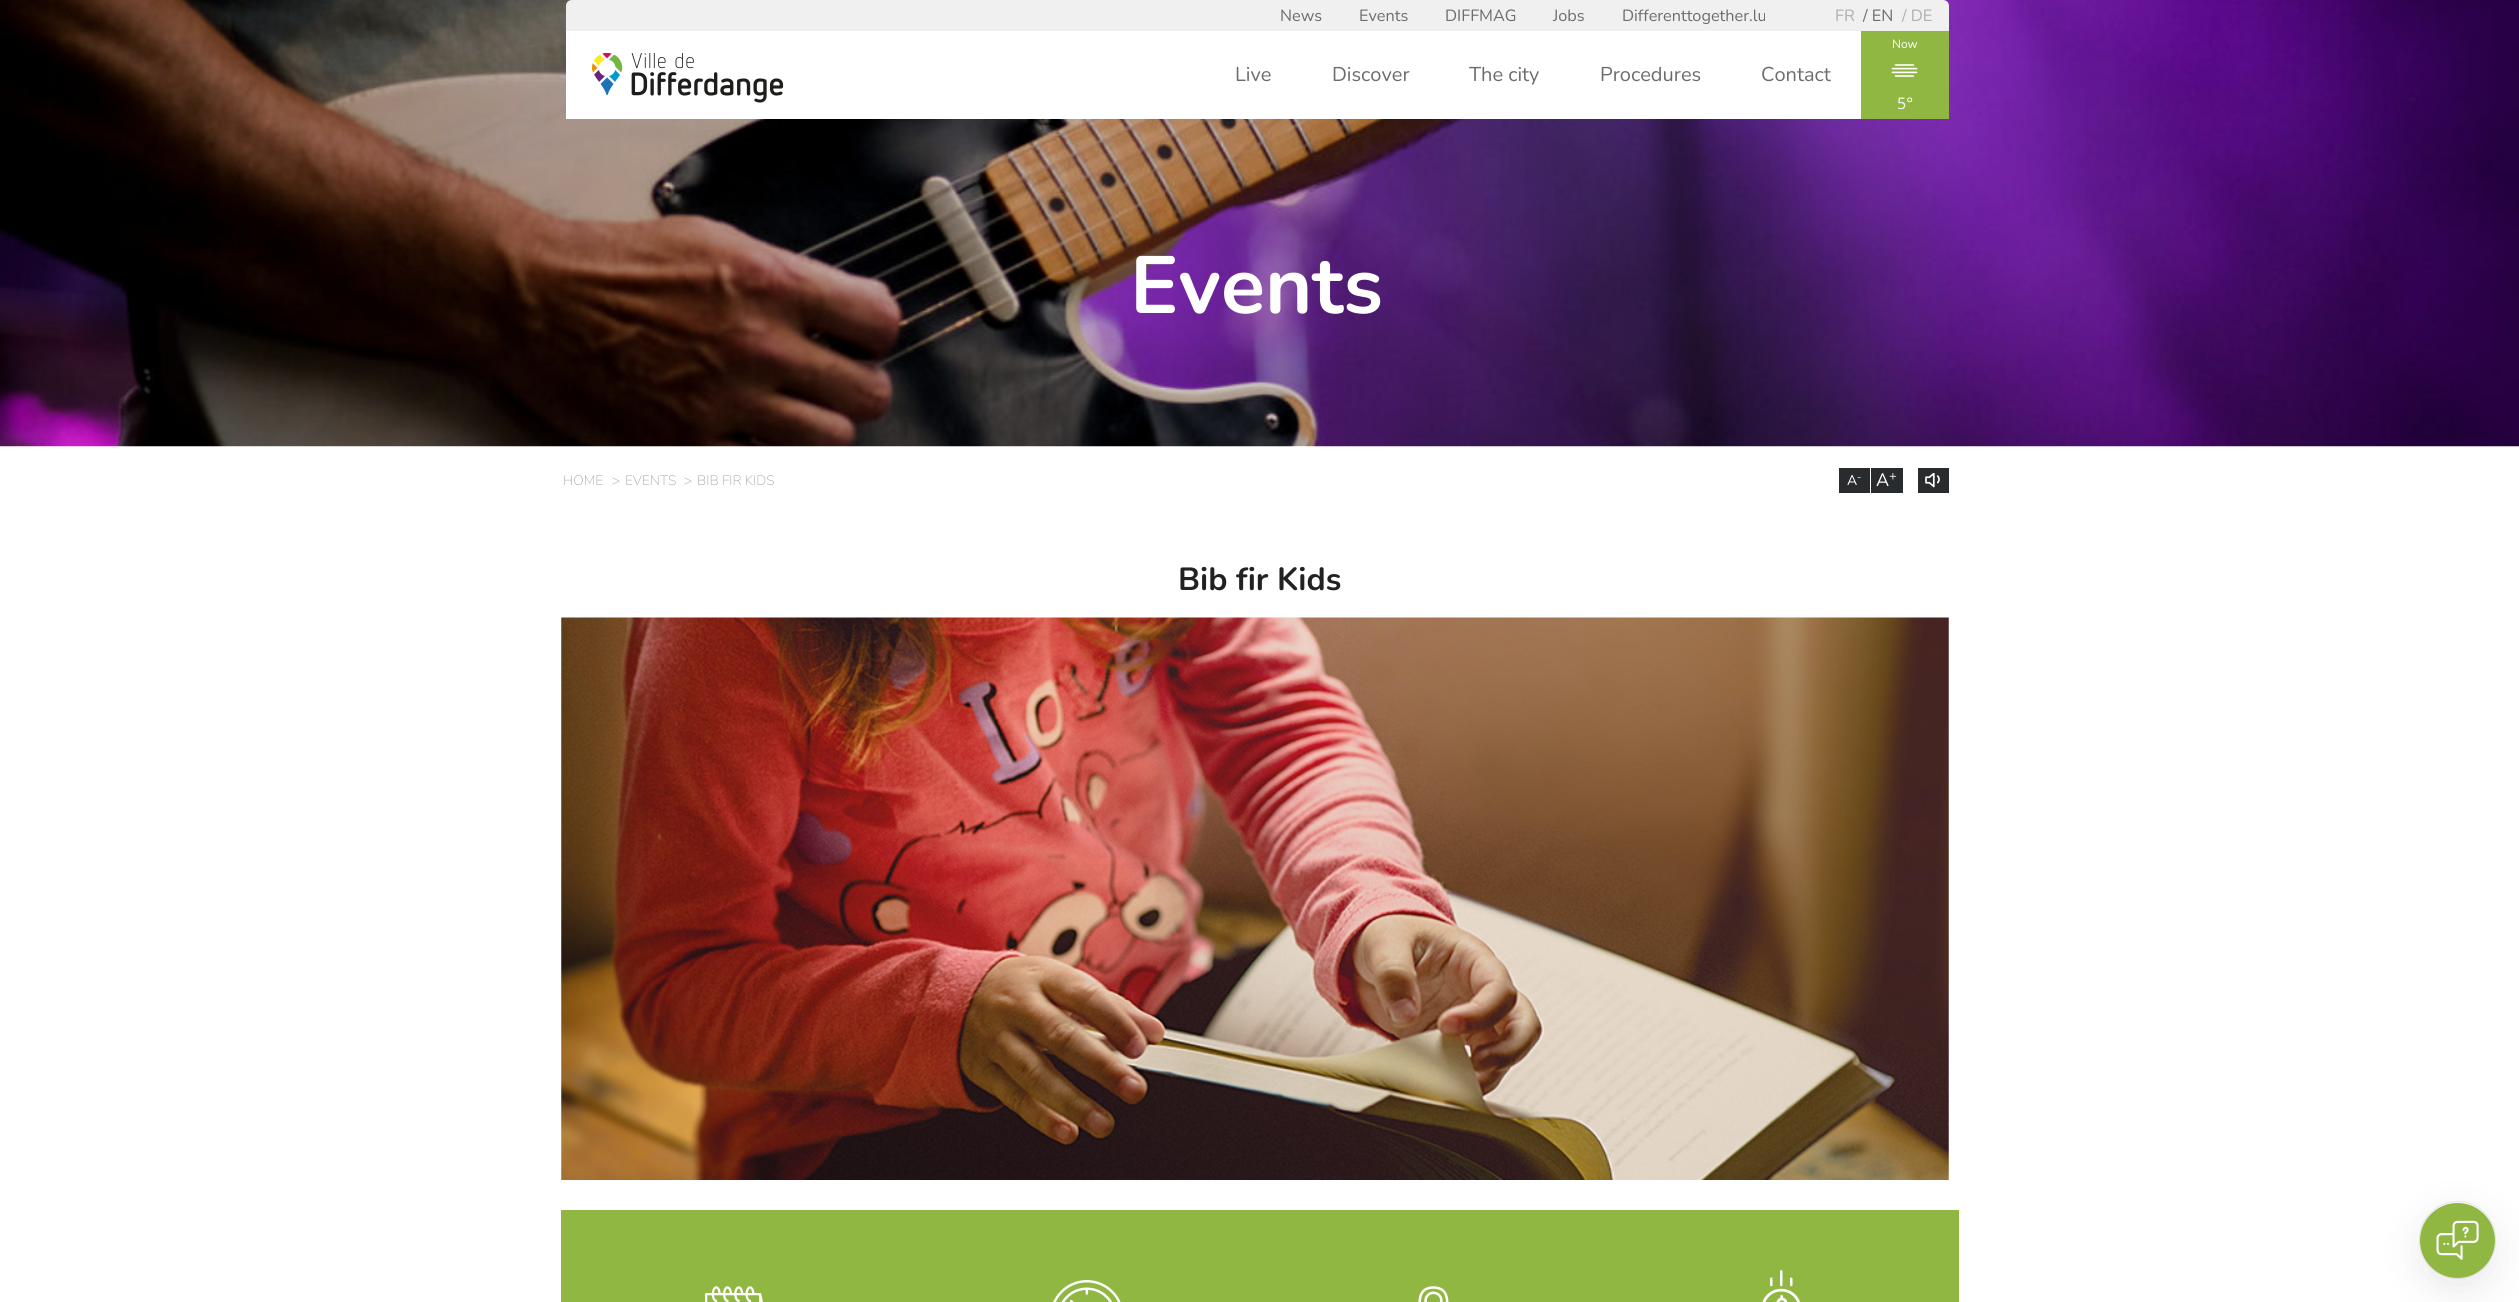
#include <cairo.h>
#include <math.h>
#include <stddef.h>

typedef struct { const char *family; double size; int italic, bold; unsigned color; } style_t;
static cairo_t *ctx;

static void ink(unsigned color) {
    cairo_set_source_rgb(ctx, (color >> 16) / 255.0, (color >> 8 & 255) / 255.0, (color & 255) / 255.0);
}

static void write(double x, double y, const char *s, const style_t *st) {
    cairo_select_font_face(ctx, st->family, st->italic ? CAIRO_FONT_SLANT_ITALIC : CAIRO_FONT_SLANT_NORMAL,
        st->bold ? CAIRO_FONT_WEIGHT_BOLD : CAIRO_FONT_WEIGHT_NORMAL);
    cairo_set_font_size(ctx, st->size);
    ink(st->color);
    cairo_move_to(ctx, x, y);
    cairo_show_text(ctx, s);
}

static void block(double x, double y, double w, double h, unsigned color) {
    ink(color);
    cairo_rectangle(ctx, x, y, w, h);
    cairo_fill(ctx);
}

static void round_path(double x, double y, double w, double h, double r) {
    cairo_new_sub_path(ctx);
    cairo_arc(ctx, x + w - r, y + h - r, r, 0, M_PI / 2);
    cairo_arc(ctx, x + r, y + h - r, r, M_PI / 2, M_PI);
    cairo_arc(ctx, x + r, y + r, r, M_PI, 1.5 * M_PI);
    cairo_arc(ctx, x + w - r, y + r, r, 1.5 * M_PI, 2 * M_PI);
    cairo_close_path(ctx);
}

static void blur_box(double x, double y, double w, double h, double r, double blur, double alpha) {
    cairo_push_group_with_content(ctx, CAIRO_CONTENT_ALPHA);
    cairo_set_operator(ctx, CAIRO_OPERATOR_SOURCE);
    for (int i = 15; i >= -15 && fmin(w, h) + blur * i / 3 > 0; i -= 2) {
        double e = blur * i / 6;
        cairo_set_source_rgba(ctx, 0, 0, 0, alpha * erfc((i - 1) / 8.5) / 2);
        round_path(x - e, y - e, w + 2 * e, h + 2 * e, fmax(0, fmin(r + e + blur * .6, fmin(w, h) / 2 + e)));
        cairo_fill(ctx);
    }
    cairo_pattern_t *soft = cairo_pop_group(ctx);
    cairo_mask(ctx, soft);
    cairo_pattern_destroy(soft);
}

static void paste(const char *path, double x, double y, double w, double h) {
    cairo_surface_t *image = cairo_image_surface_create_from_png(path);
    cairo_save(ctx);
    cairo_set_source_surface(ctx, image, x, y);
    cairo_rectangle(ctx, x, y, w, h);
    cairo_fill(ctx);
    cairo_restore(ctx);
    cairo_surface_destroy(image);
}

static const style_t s1 = {"Nunito", 16.25, 0, 0, 0x6c6c6c};
static const style_t s2 = {"Nunito", 16.25, 0, 0, 0xaeaeae};
static const style_t s3 = {"Nunito", 20, 0, 0, 0x6c6c6c};
static const style_t s4 = {"Nunito", 12, 0, 0, 0xffffff};
static const style_t s5 = {"Open Sans", 16, 0, 0, 0xffffff};
static const style_t s6 = {"Nunito", 81, 0, 1, 0xffffff};
static const style_t s7 = {"Nunito ExtraLight", 13.75, 0, 0, 0xa6a6a6};
static const style_t s8 = {"Nunito", 14, 0, 0, 0xffffff};
static const style_t s9 = {"Nunito", 10, 0, 0, 0xffffff};
static const style_t s10 = {"Nunito", 18, 0, 0, 0xffffff};
static const style_t s11 = {"Nunito", 13, 0, 0, 0xffffff};
static const style_t s12 = {"Nunito", 32, 0, 1, 0x222222};

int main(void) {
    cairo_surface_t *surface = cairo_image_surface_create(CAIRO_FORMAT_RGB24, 2519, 1302);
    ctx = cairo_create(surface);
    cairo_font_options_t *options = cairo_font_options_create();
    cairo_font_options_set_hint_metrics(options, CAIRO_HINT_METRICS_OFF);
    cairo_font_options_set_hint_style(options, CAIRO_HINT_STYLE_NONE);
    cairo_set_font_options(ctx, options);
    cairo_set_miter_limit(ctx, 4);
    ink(0xffffff);
    cairo_paint(ctx);
    paste("pic3.png", 0, 0, 2519, 447);
    ink(0xf0f0f0);
    cairo_new_path(ctx);
    cairo_move_to(ctx, 572, 0);
    cairo_line_to(ctx, 1943, 0);
    cairo_curve_to(ctx, 1946.5, 0, 1949, 2.5, 1949, 6);
    cairo_line_to(ctx, 1949, 31);
    cairo_line_to(ctx, 566, 31);
    cairo_line_to(ctx, 566, 6);
    cairo_curve_to(ctx, 566, 2.5, 568.5, 0, 572, 0);
    cairo_close_path(ctx);
    cairo_fill(ctx);
    write(1280, 21, "News", &s1);
    write(1359, 21, "Events", &s1);
    write(1445, 21, "DIFFMAG", &s1);
    write(1553, 21, "Jobs", &s1);
    write(1622, 21, "Differenttogether.lu", &s1);
    write(1835, 21, "FR", &s2);
    write(1863, 21, "/ EN", &s1);
    write(1902, 21, "/ DE", &s2);
    block(566, 31, 1295, 88, 0xffffff);
    paste("pic1.png", 591, 53, 193, 50);
    write(1235, 81, "Live", &s3);
    write(1332, 81, "Discover", &s3);
    write(1469, 81, "The city", &s3);
    write(1600, 81, "Procedures", &s3);
    write(1761, 81, "Contact", &s3);
    block(1861, 31, 88, 88, 0x90b742);
    write(1892, 48, "Now", &s4);
    paste("pic2.png", 1891, 64, 27, 13);
    write(1897, 109, "5°", &s5);
    write(1130, 313, "Events", &s6);
    write(563, 485, "HOME", &s7);
    write(612, 485, ">", &s7);
    write(625, 485, "EVENTS", &s7);
    write(684, 485, ">", &s7);
    write(697, 485, "BIB FIR KIDS", &s7);
    block(1839, 468, 31, 25, 0x292c2f);
    write(1847, 485, "A", &s8);
    write(1857, 480, "-", &s9);
    block(1871, 468, 32, 25, 0x292c2f);
    write(1876, 486, "A", &s10);
    write(1889, 480, "+", &s11);
    block(1918, 468, 31, 25, 0x292c2f);
    paste("pic4.png", 1925, 473, 15, 15);
    write(1178, 590, "Bib fir Kids", &s12);
    paste("pic5.png", 561, 617, 1388, 563);
    block(561, 1210, 1398, 92, 0x90b742);
    paste("pic6.png", 705, 1286, 58, 16);
    paste("pic7.png", 1053, 1280, 68, 22);
    paste("pic8.png", 1418, 1286, 31, 16);
    paste("pic9.png", 1762, 1270, 38, 32);
    round_path(2419.5, 1201.5, 76, 77, 38);
    ink(0xeaeaea);
    cairo_set_line_width(ctx, 1);
    cairo_stroke(ctx);
    ink(0x969696);
    blur_box(2420, 1215, 75, 75, 37.5, 19, 0.2);
    ink(0x90b742);
    cairo_arc(ctx, 2457.5, 1240.5, 37.5, 0, 2 * M_PI);
    cairo_fill(ctx);
    paste("pic10.png", 2436, 1220, 43, 40);
    cairo_surface_write_to_png(surface, "screenshot.png");
    cairo_font_options_destroy(options);
    cairo_destroy(ctx);
    cairo_surface_destroy(surface);
    return 0;
}
